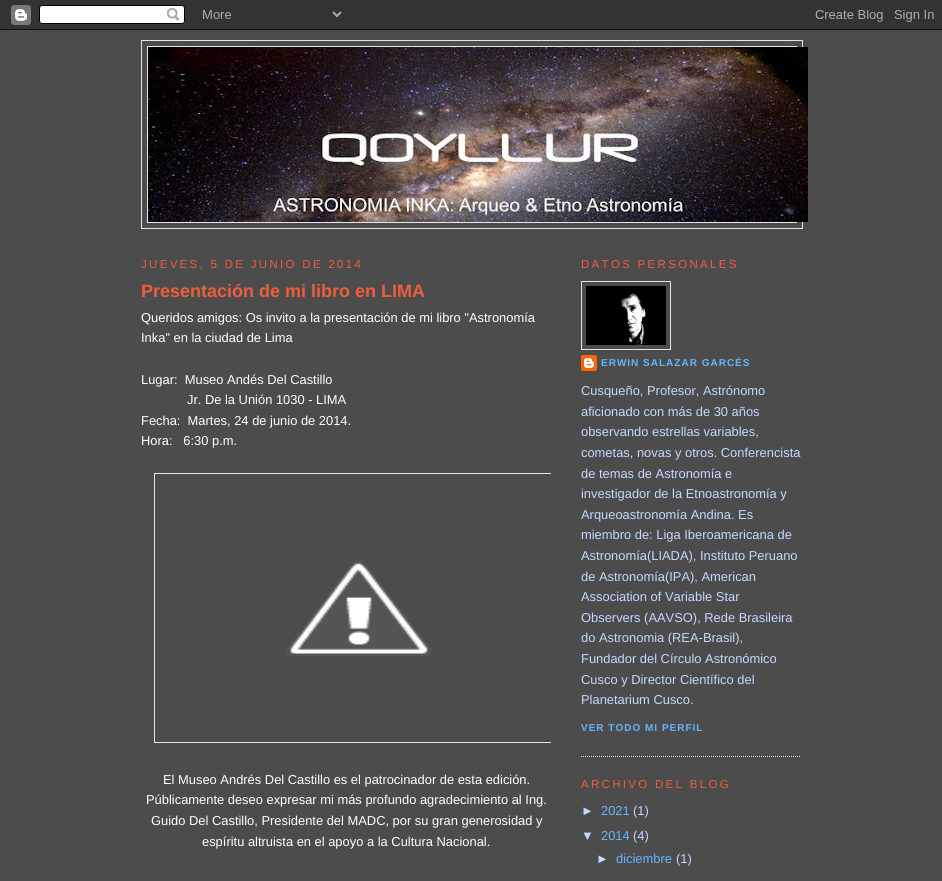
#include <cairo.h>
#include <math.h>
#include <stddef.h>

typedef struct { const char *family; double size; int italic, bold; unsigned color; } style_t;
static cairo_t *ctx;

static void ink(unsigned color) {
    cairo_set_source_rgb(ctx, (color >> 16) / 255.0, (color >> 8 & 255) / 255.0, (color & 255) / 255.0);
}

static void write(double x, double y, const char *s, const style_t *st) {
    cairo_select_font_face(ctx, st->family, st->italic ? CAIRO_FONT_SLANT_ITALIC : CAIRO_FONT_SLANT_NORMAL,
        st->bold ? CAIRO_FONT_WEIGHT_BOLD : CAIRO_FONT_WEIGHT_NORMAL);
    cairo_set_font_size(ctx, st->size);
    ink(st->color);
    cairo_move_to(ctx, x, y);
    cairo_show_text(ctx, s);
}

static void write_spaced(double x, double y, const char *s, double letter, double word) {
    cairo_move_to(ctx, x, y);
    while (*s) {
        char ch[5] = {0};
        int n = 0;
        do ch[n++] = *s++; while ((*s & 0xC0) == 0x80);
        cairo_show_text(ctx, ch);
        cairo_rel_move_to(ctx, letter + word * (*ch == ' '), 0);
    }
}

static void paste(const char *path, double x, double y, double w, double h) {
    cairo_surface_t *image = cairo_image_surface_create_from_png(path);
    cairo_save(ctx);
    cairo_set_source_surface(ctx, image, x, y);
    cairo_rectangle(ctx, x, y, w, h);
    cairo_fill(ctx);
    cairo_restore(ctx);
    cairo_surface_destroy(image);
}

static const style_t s1 = {"Liberation Sans", 18, 0, 1, 0xee5e3d};
static const style_t s2 = {"Liberation Sans", 12.9, 0, 0, 0xffffff};
static const style_t s3 = {"Liberation Sans", 12.9, 0, 0, 0xc3d9ff};
static const style_t s4 = {"Liberation Sans", 12.9, 0, 0, 0x66b5ff};

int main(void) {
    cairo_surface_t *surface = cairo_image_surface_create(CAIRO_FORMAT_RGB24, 942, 881);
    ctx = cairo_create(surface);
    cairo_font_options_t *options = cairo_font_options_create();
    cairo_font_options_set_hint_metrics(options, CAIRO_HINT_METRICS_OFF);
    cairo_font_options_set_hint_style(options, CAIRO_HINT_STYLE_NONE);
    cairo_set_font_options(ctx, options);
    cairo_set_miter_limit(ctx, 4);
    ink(0x4c4c4c);
    cairo_paint(ctx);
    paste("pic1.png", 0, 0, 942, 30);
    cairo_rectangle(ctx, 141.5, 40.5, 661, 188);
    ink(0xe6e6e6);
    cairo_set_line_width(ctx, 1);
    cairo_stroke(ctx);
    cairo_rectangle(ctx, 147.5, 46.5, 649, 176);
    cairo_stroke(ctx);
    paste("pic2.png", 148, 47, 660, 175);
    cairo_select_font_face(ctx, "Liberation Sans", CAIRO_FONT_SLANT_NORMAL, CAIRO_FONT_WEIGHT_NORMAL);
    cairo_set_font_size(ctx, 11.5);
    ink(0xee5e3d);
    write_spaced(141, 268, "JUEVES, 5 DE JUNIO DE 2014", 2.3, 0);
    write(141, 297, "Presentación de mi libro en LIMA", &s1);
    write(141, 322, "Queridos amigos: Os invito a la presentación de mi libro \"Astronomía", &s2);
    write(141, 342, "Inka\" en la ciudad de Lima", &s2);
    write(141, 384, "Lugar:  Museo Andés Del Castillo", &s2);
    write(187, 404, "Jr. De la Unión 1030 - LIMA", &s2);
    write(141, 425, "Fecha:  Martes, 24 de junio de 2014.", &s2);
    write(141, 445, "Hora:   6:30 p.m.", &s2);
    cairo_save(ctx);
    cairo_rectangle(ctx, 141, 239, 410, 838);
    cairo_clip(ctx);
    cairo_rectangle(ctx, 154.5, 473.5, 409, 269);
    ink(0xe6e6e6);
    cairo_stroke(ctx);
    cairo_restore(ctx);
    paste("pic3.png", 285, 560, 148, 96);
    write(163, 784, "El Museo Andrés Del Castillo es el patrocinador de esta edición.", &s2);
    write(146, 804, "Públicamente deseo expresar mi más profundo agradecimiento al Ing.", &s2);
    write(151, 825, "Guido Del Castillo, Presidente del MADC, por su gran generosidad y", &s2);
    write(202, 846, "espíritu altruista en el apoyo a la Cultura Nacional.", &s2);
    cairo_new_path(ctx);
    cairo_move_to(ctx, 581, 756.5);
    cairo_line_to(ctx, 801, 756.5);
    ink(0xe6e6e6);
    cairo_set_dash(ctx, (double[]){1, 1}, 2, 0);
    cairo_stroke(ctx);
    cairo_set_font_size(ctx, 11.5);
    ink(0xee5e3d);
    write_spaced(581, 268, "DATOS PERSONALES", 2.3, 0);
    cairo_rectangle(ctx, 581.5, 281.5, 89, 68);
    ink(0xe6e6e6);
    cairo_set_dash(ctx, NULL, 0, 0);
    cairo_stroke(ctx);
    paste("pic4.png", 586, 286, 80, 59);
    paste("pic5.png", 581, 355, 16, 16);
    cairo_select_font_face(ctx, "Liberation Sans", CAIRO_FONT_SLANT_NORMAL, CAIRO_FONT_WEIGHT_BOLD);
    cairo_set_font_size(ctx, 10);
    ink(0x66b5ff);
    write_spaced(601, 366, "ERWIN SALAZAR GARCÉS", 1, 0);
    write(581, 395, "Cusqueño, Profesor, Astrónomo", &s3);
    write(581, 416, "aficionado con más de 30 años", &s3);
    write(581, 436, "observando estrellas variables,", &s3);
    write(581, 457, "cometas, novas y otros. Conferencista", &s3);
    write(581, 478, "de temas de Astronomía e", &s3);
    write(581, 498, "investigador de la Etnoastronomía y", &s3);
    write(581, 519, "Arqueoastronomía Andina. Es", &s3);
    write(581, 539, "miembro de: Liga Iberoamericana de", &s3);
    write(581, 560, "Astronomía(LIADA), Instituto Peruano", &s3);
    write(581, 581, "de Astronomía(IPA), American", &s3);
    write(581, 601, "Association of Variable Star", &s3);
    write(581, 622, "Observers (AAVSO), Rede Brasileira", &s3);
    write(581, 642, "do Astronomia (REA-Brasil),", &s3);
    write(581, 663, "Fundador del Círculo Astronómico", &s3);
    write(581, 684, "Cusco y Director Científico del", &s3);
    write(581, 704, "Planetarium Cusco.", &s3);
    cairo_select_font_face(ctx, "Liberation Sans", CAIRO_FONT_SLANT_NORMAL, CAIRO_FONT_WEIGHT_BOLD);
    cairo_set_font_size(ctx, 10);
    ink(0x66b5ff);
    write_spaced(581, 731, "VER TODO MI PERFIL", 1, 0);
    cairo_select_font_face(ctx, "Liberation Sans", CAIRO_FONT_SLANT_NORMAL, CAIRO_FONT_WEIGHT_NORMAL);
    cairo_set_font_size(ctx, 11.5);
    ink(0xee5e3d);
    write_spaced(581, 788, "ARCHIVO DEL BLOG", 2.3, 0);
    write(581, 815, "►", &s3);
    write(601, 815, "2021", &s4);
    write(633, 815, "(1)", &s3);
    write(581, 840, "▼", &s3);
    write(601, 840, "2014", &s4);
    write(633, 840, "(4)", &s3);
    write(596, 863, "►", &s3);
    write(616, 863, "diciembre", &s4);
    write(676, 863, "(1)", &s3);
    cairo_surface_write_to_png(surface, "screenshot.png");
    cairo_font_options_destroy(options);
    cairo_destroy(ctx);
    cairo_surface_destroy(surface);
    return 0;
}
